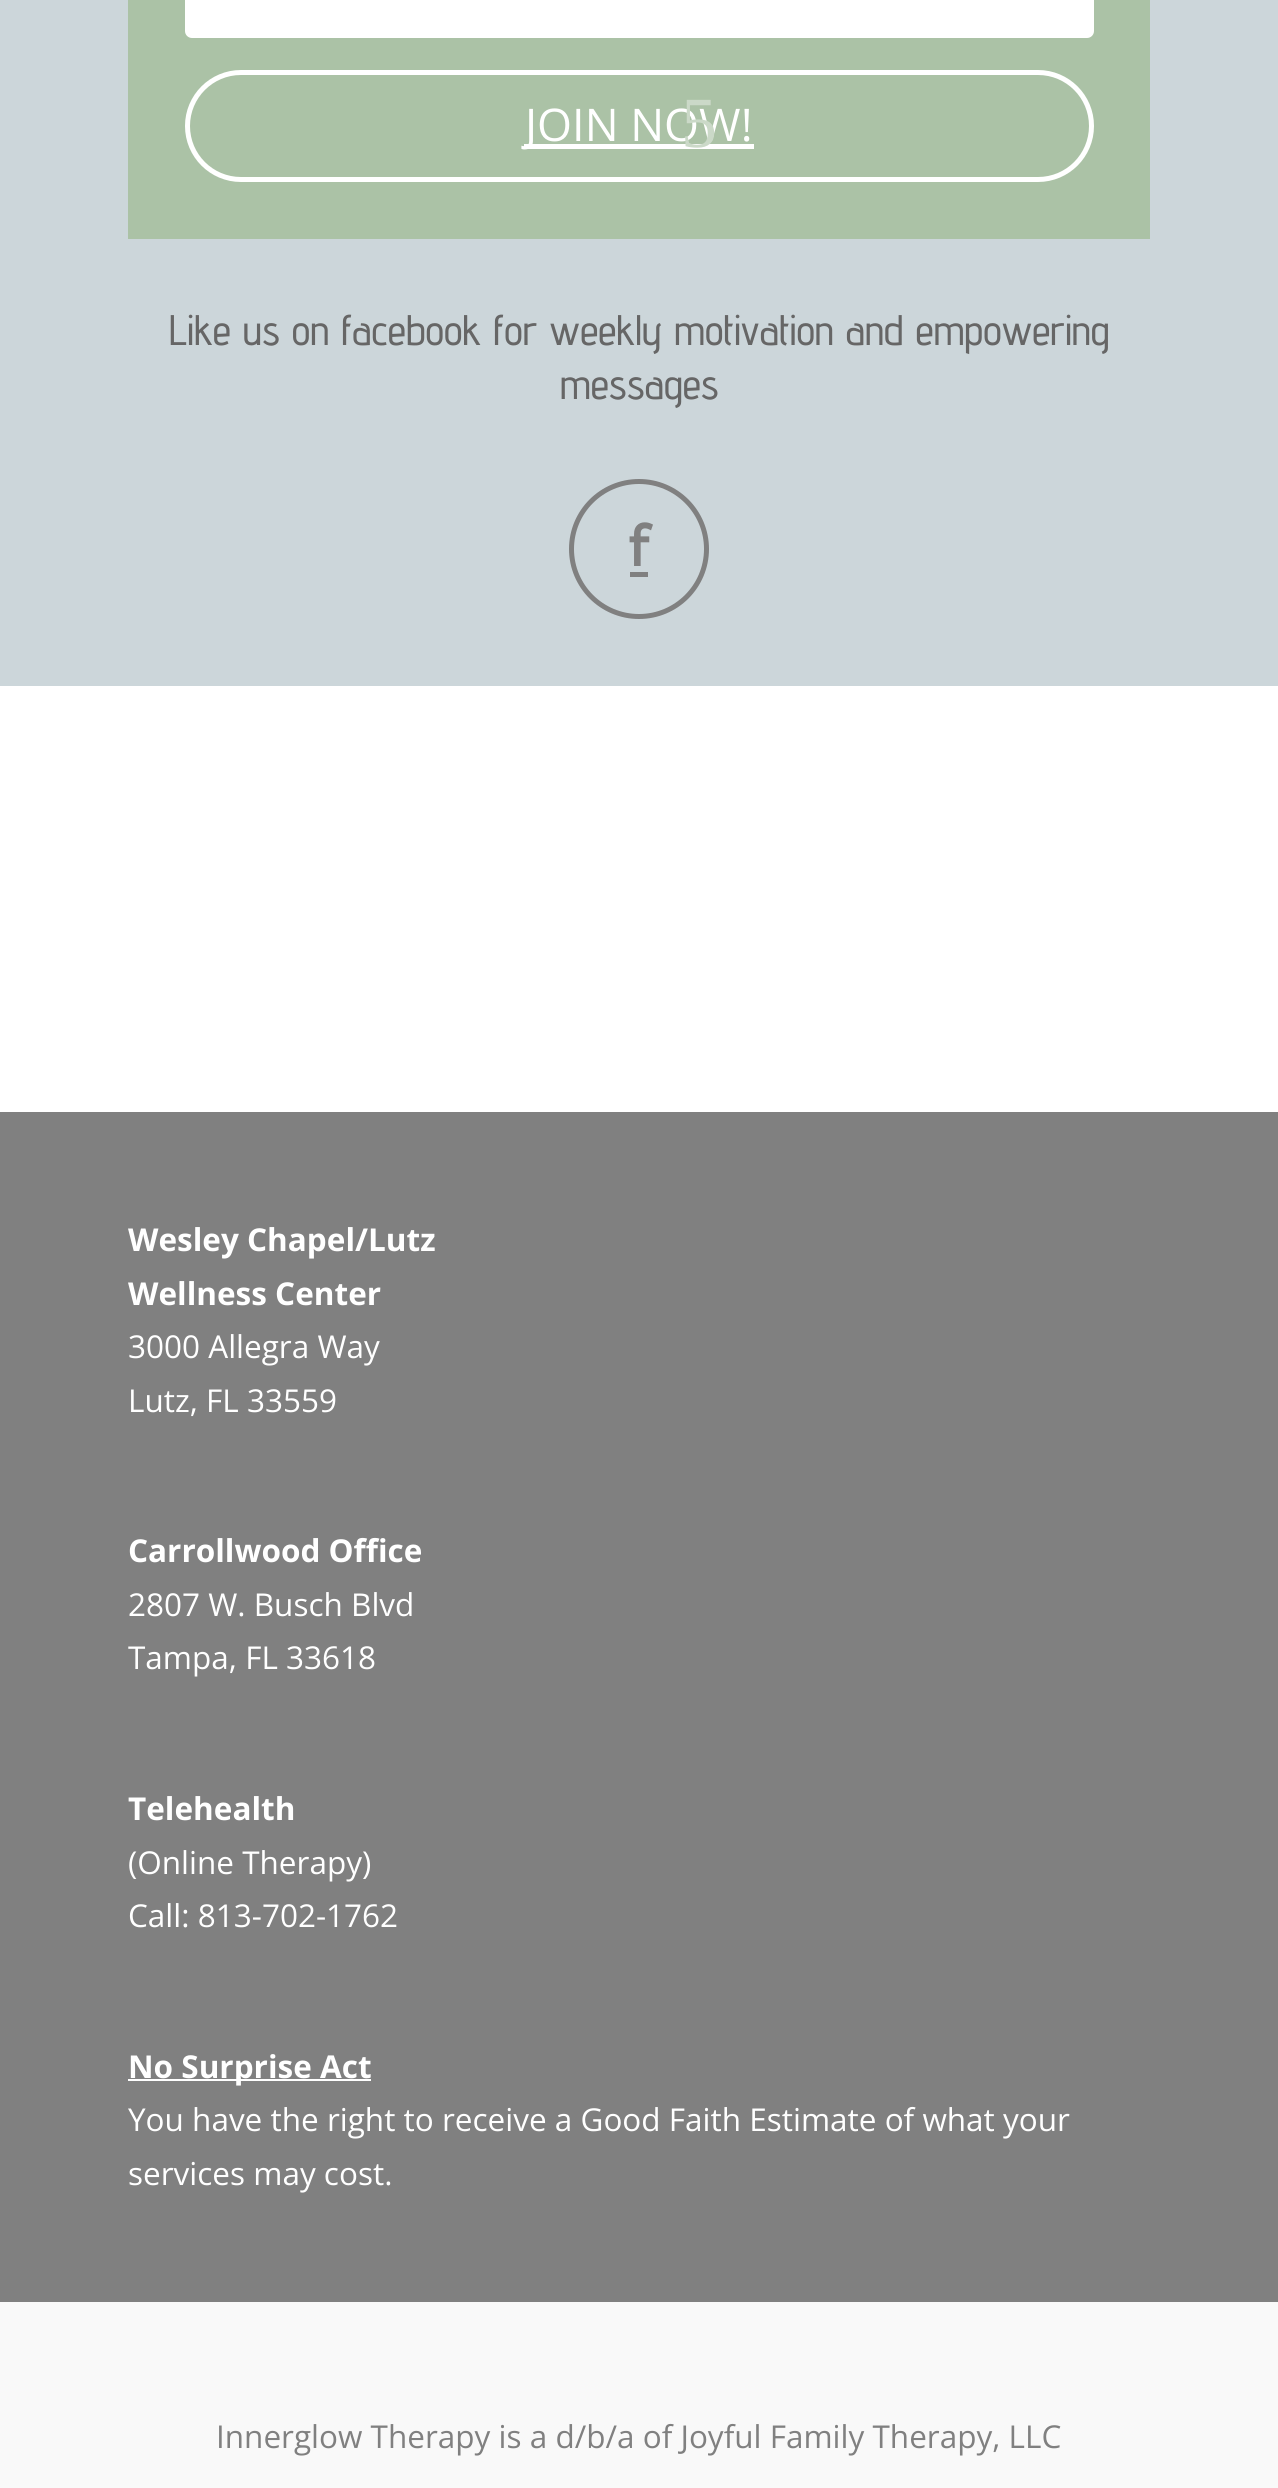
#include <cairo.h>
#include <math.h>
#include <stddef.h>

typedef struct { const char *family; double size; int italic, bold; unsigned color; } style_t;
static cairo_t *ctx;

static void ink(unsigned color) {
    cairo_set_source_rgb(ctx, (color >> 16) / 255.0, (color >> 8 & 255) / 255.0, (color & 255) / 255.0);
}

static void write(double x, double y, const char *s, const style_t *st) {
    cairo_select_font_face(ctx, st->family, st->italic ? CAIRO_FONT_SLANT_ITALIC : CAIRO_FONT_SLANT_NORMAL,
        st->bold ? CAIRO_FONT_WEIGHT_BOLD : CAIRO_FONT_WEIGHT_NORMAL);
    cairo_set_font_size(ctx, st->size);
    ink(st->color);
    cairo_move_to(ctx, x, y);
    cairo_show_text(ctx, s);
}

static void block(double x, double y, double w, double h, unsigned color) {
    ink(color);
    cairo_rectangle(ctx, x, y, w, h);
    cairo_fill(ctx);
}

static void round_path(double x, double y, double w, double h, double r) {
    cairo_new_sub_path(ctx);
    cairo_arc(ctx, x + w - r, y + h - r, r, 0, M_PI / 2);
    cairo_arc(ctx, x + r, y + h - r, r, M_PI / 2, M_PI);
    cairo_arc(ctx, x + r, y + r, r, M_PI, 1.5 * M_PI);
    cairo_arc(ctx, x + w - r, y + r, r, 1.5 * M_PI, 2 * M_PI);
    cairo_close_path(ctx);
}

static const style_t s1 = {"Open Sans", 45, 0, 0, 0xffffff};
static const style_t s2 = {"Liberation Serif", 72, 0, 0, 0xcbd9c8};
static const style_t s3 = {"Advent Pro Medium", 42.75, 0, 0, 0x666666};
static const style_t s4 = {"ABeeZee", 56, 0, 1, 0x808080};
static const style_t s5 = {"Open Sans", 31.5, 0, 1, 0xffffff};
static const style_t s6 = {"Open Sans", 31.5, 0, 0, 0xffffff};
static const style_t s7 = {"Open Sans", 31.5, 0, 0, 0x808080};

int main(void) {
    cairo_surface_t *surface = cairo_image_surface_create(CAIRO_FORMAT_RGB24, 1278, 2488);
    ctx = cairo_create(surface);
    cairo_font_options_t *options = cairo_font_options_create();
    cairo_font_options_set_hint_metrics(options, CAIRO_HINT_METRICS_OFF);
    cairo_font_options_set_hint_style(options, CAIRO_HINT_STYLE_NONE);
    cairo_set_font_options(ctx, options);
    cairo_set_miter_limit(ctx, 4);
    ink(0xffffff);
    cairo_paint(ctx);
    block(0, 0, 1278, 686, 0xccd6da);
    block(128, 0, 1022, 239, 0xabc2a6);
    ink(0xffffff);
    round_path(185, -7, 909, 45, 7);
    cairo_fill(ctx);
    round_path(187.5, 72.5, 904, 107, 53.5);
    cairo_set_line_width(ctx, 5);
    cairo_stroke(ctx);
    block(524, 144, 230, 5, 0xffffff);
    write(525, 141, "JOIN NOW!", &s1);
    write(681, 147, "5", &s2);
    write(169, 345, "Like us on facebook for weekly motivation and empowering", &s3);
    write(560, 399, "messages", &s3);
    cairo_new_path(ctx);
    cairo_arc(ctx, 639, 549, 67.5, 0, 2 * M_PI);
    ink(0x808080);
    cairo_stroke(ctx);
    write(629, 566, "f", &s4);
    block(630, 572, 18, 5, 0x808080);
    block(0, 1112, 1278, 1190, 0x808080);
    write(128, 1251, "Wesley Chapel/Lutz", &s5);
    write(128, 1305, "Wellness Center", &s5);
    write(128, 1358, "3000 Allegra Way", &s6);
    write(128, 1412, "Lutz, FL 33559", &s6);
    write(128, 1562, "Carrollwood Office", &s5);
    write(128, 1616, "2807 W. Busch Blvd", &s6);
    write(128, 1669, "Tampa, FL 33618", &s6);
    write(128, 1820, "Telehealth", &s5);
    write(128, 1874, "(Online Therapy)", &s6);
    write(128, 1927, "Call: 813-702-1762", &s6);
    block(128, 2079, 243, 2, 0xffffff);
    write(128, 2078, "No Surprise Act", &s5);
    write(128, 2131, "You have the right to receive a Good Faith Estimate of what your", &s6);
    write(128, 2185, "services may cost.", &s6);
    block(0, 2302, 1278, 186, 0xf9f9f9);
    write(216, 2448, "Innerglow Therapy is a d/b/a of Joyful Family Therapy, LLC", &s7);
    cairo_surface_write_to_png(surface, "screenshot.png");
    cairo_font_options_destroy(options);
    cairo_destroy(ctx);
    cairo_surface_destroy(surface);
    return 0;
}
